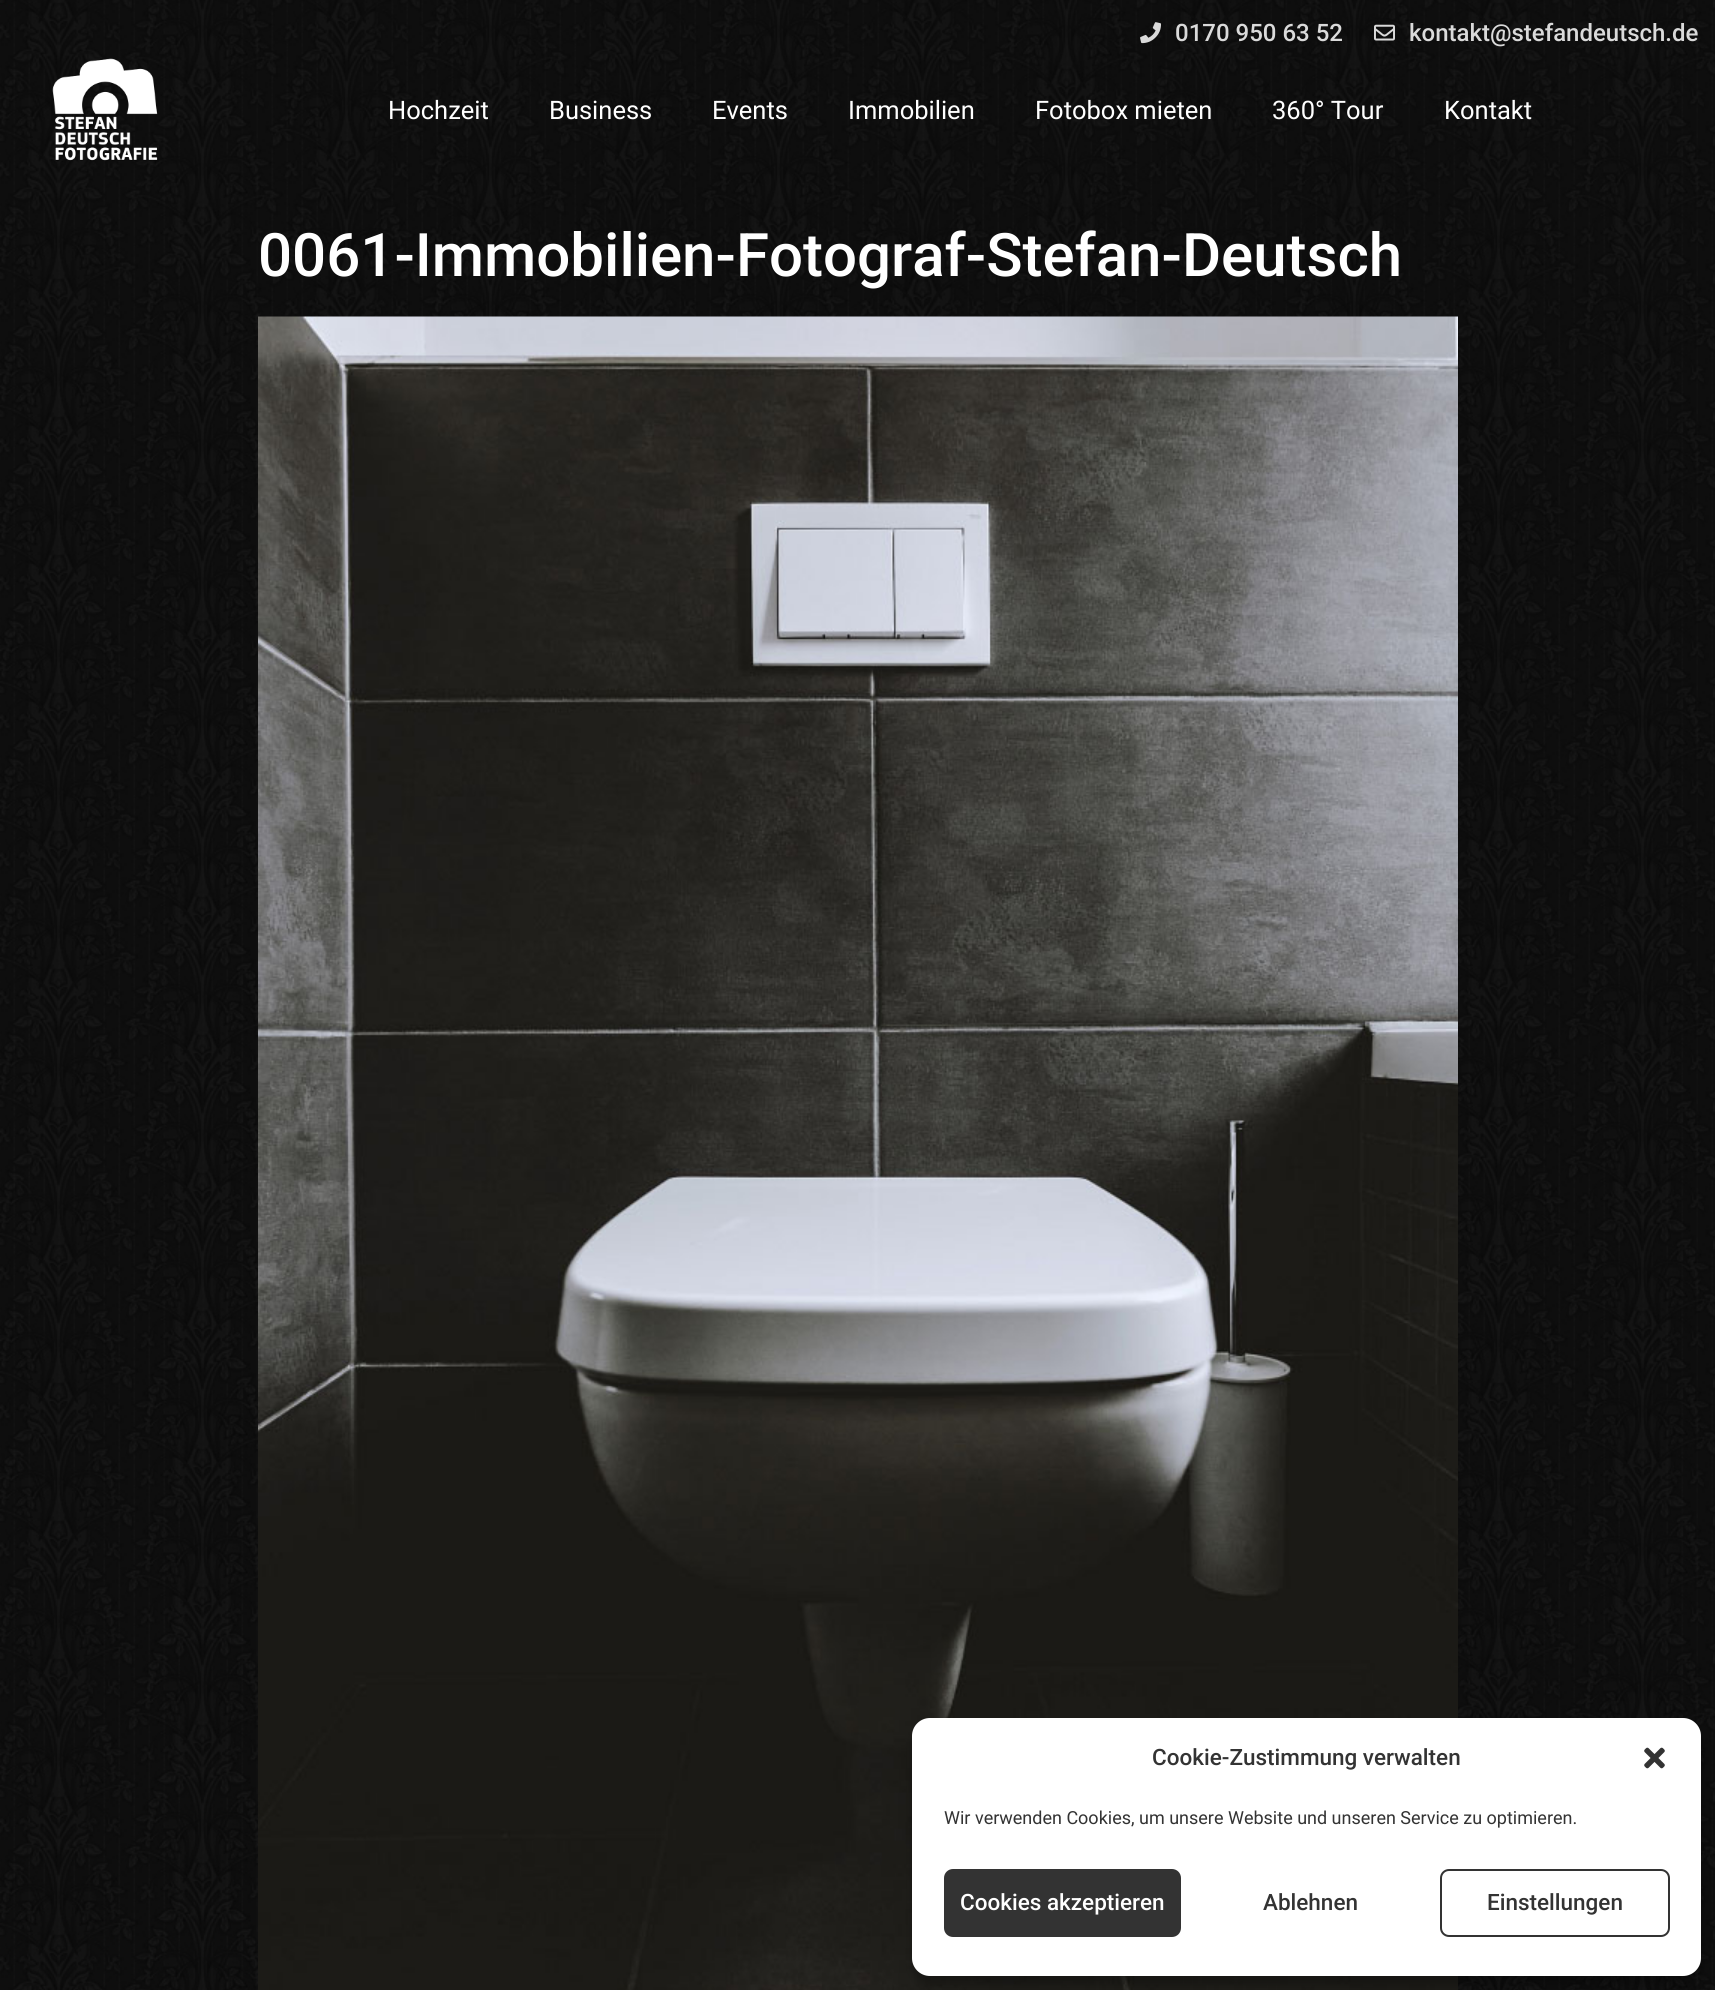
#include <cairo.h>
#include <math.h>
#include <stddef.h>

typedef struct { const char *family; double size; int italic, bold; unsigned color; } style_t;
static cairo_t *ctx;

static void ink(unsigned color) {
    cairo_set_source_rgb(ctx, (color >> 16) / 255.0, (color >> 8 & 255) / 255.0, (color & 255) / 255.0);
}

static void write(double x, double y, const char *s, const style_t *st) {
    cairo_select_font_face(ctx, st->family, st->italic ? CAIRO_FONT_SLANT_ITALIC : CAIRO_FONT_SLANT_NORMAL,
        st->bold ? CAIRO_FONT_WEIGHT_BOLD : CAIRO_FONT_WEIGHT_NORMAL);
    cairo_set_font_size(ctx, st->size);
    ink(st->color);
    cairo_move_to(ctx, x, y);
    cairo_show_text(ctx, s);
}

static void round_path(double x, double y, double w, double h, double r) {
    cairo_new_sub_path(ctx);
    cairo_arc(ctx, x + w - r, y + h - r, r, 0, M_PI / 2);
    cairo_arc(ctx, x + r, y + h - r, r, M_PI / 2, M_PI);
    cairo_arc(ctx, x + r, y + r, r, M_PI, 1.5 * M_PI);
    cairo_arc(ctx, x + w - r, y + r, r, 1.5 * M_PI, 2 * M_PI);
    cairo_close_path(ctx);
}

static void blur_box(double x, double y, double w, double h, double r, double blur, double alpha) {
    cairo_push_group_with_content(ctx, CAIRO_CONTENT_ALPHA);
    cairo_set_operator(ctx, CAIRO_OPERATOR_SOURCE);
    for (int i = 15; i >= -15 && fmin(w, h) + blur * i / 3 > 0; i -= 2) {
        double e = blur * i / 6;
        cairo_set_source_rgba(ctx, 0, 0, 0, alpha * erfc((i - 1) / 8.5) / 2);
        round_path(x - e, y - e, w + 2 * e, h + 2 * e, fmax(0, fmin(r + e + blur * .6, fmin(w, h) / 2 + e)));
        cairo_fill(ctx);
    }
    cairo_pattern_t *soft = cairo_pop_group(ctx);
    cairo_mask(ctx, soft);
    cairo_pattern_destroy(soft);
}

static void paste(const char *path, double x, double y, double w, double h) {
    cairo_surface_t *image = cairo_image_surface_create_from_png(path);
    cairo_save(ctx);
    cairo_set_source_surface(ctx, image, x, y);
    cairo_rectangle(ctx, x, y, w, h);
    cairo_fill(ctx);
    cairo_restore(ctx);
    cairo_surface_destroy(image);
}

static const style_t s1 = {"Roboto Medium", 24, 0, 0, 0xdadada};
static const style_t s2 = {"Roboto", 25.5, 0, 0, 0xffffff};
static const style_t s3 = {"Roboto Medium", 60, 0, 0, 0xffffff};
static const style_t s4 = {"Roboto Medium", 22.5, 0, 0, 0x333333};
static const style_t s5 = {"Roboto", 18, 0, 0, 0x333333};
static const style_t s6 = {"Roboto Medium", 22.5, 0, 0, 0xffffff};

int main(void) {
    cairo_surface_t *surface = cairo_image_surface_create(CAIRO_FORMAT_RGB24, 1715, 1990);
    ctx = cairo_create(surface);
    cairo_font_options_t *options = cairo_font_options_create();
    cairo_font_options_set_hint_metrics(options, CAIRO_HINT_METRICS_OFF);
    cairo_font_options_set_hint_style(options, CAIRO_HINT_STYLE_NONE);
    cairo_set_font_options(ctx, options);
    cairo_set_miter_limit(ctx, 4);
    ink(0xffffff);
    cairo_paint(ctx);
    paste("pic1.png", 0, 0, 1715, 1990);
    paste("pic2.png", 1140, 22, 21, 22);
    write(1175, 41, "0170 950 63 52", &s1);
    paste("pic3.png", 1374, 24, 21, 17);
    write(1409, 41, "kontakt@stefandeutsch.de", &s1);
    paste("pic4.png", 52, 58, 106, 103);
    write(388, 119, "Hochzeit", &s2);
    write(549, 119, "Business", &s2);
    write(712, 119, "Events", &s2);
    write(848, 119, "Immobilien", &s2);
    write(1035, 119, "Fotobox mieten", &s2);
    write(1272, 119, "360° Tour", &s2);
    write(1444, 119, "Kontakt", &s2);
    write(258, 276, "0061-Immobilien-Fotograf-Stefan-Deutsch", &s3);
    paste("pic5.png", 258, 316, 1200, 1674);
    ink(0x000000);
    blur_box(912, 1727, 789, 258, 18, 4.5, 0.23);
    ink(0xffffff);
    round_path(913, 1719, 787, 256, 17);
    cairo_fill_preserve(ctx);
    cairo_stroke(ctx);
    write(1152, 1765, "Cookie-Zustimmung verwalten", &s4);
    paste("pic6.png", 1644, 1747, 21, 22);
    write(944, 1824, "Wir verwenden Cookies, um unsere Website und unseren Service zu optimieren.", &s5);
    round_path(945, 1870, 235, 66, 8);
    cairo_fill_preserve(ctx);
    cairo_stroke(ctx);
    write(960, 1910, "Cookies akzeptieren", &s6);
    write(1263, 1910, "Ablehnen", &s4);
    round_path(1441, 1870, 228, 66, 8);
    cairo_stroke(ctx);
    write(1487, 1910, "Einstellungen", &s4);
    cairo_surface_write_to_png(surface, "screenshot.png");
    cairo_font_options_destroy(options);
    cairo_destroy(ctx);
    cairo_surface_destroy(surface);
    return 0;
}
